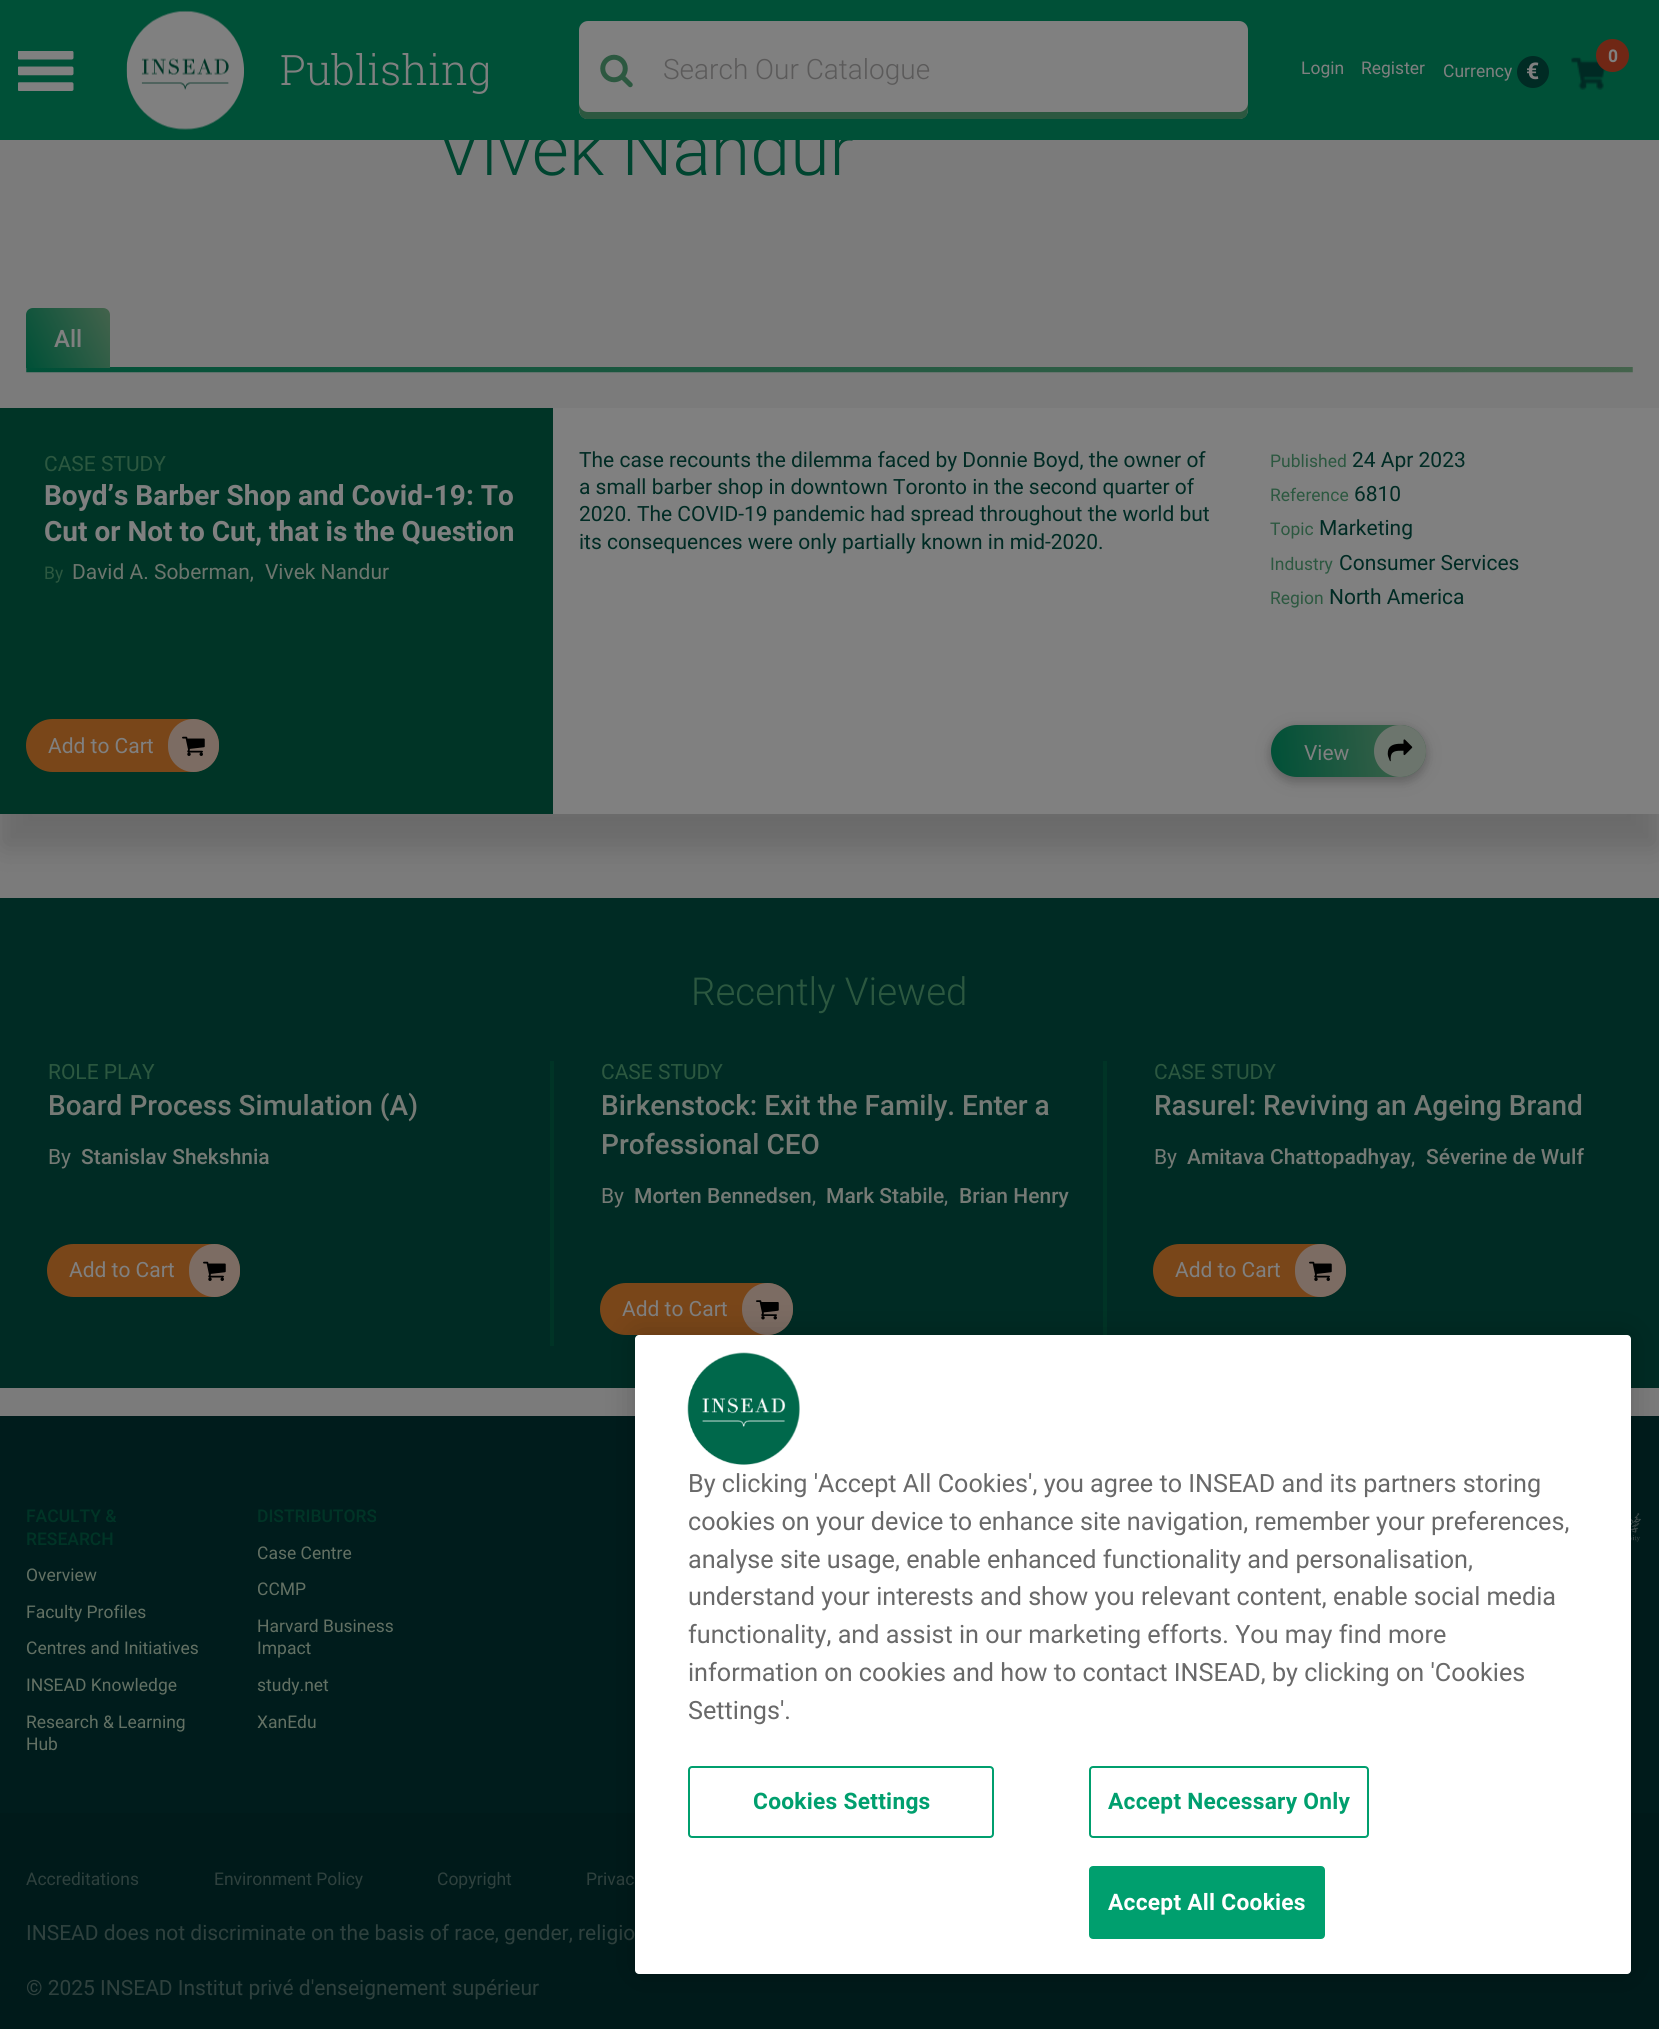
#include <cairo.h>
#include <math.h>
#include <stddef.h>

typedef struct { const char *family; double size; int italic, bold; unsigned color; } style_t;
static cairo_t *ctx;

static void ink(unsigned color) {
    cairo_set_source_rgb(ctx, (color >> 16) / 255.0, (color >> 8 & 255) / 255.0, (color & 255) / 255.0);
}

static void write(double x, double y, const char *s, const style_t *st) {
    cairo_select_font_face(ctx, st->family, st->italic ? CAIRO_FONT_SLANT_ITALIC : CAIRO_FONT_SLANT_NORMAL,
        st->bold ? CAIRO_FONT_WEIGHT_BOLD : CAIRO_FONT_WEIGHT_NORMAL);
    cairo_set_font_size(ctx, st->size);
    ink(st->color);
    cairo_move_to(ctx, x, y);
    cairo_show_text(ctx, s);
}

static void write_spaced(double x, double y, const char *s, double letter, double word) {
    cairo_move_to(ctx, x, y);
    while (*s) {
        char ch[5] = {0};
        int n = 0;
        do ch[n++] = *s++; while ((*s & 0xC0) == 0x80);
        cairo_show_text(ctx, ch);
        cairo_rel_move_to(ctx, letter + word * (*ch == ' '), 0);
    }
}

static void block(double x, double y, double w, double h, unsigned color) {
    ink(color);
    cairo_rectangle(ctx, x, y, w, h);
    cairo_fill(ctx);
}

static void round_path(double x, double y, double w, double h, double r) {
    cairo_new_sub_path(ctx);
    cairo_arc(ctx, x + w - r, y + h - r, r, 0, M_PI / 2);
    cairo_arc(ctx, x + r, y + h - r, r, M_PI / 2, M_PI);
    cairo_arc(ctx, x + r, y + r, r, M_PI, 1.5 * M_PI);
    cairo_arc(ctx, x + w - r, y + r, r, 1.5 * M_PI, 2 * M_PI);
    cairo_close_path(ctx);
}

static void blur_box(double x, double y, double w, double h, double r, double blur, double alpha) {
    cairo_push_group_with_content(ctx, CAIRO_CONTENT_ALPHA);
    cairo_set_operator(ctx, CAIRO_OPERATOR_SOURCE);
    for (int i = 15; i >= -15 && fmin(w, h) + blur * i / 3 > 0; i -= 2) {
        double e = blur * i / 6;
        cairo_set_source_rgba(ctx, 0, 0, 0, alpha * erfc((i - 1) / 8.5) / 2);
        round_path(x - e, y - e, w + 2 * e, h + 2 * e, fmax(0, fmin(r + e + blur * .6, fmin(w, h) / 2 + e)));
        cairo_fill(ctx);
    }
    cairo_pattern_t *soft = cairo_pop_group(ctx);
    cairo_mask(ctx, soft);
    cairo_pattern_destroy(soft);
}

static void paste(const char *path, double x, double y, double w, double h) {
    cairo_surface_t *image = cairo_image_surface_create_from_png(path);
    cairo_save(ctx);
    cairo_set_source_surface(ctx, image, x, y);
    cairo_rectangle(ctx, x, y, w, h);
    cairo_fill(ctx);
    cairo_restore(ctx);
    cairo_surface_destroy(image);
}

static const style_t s1 = {"Roboto Light", 71.75, 0, 0, 0x004530};
static const style_t s2 = {"Roboto Slab Light", 42, 0, 0, 0x808080};
static const style_t s3 = {"Roboto Light", 28, 0, 0, 0x5b5a5a};
static const style_t s4 = {"Roboto", 17.5, 0, 1, 0x808080};
static const style_t s5 = {"Roboto", 17.5, 0, 0, 0x808080};
static const style_t s6 = {"Roboto", 23, 0, 1, 0x808080};
static const style_t s7 = {"Roboto Medium", 24, 0, 0, 0x808080};
static const style_t s8 = {"Roboto", 21, 0, 0, 0x2c5840};
static const style_t s9 = {"Roboto", 28, 0, 1, 0x808080};
static const style_t s10 = {"Roboto", 17.5, 0, 0, 0x2c5840};
static const style_t s11 = {"Roboto", 21, 0, 0, 0x6c756d};
static const style_t s12 = {"Roboto", 21, 0, 0, 0x808080};
static const style_t s13 = {"Roboto", 21, 0, 0, 0x002b24};
static const style_t s14 = {"Roboto Light", 38.5, 0, 0, 0x2c5840};
static const style_t s15 = {"Roboto Medium", 28, 0, 0, 0x757a75};
static const style_t s16 = {"Roboto", 21, 0, 0, 0x757a75};
static const style_t s17 = {"Roboto Medium", 21, 0, 0, 0x757a75};
static const style_t s18 = {"Roboto Medium", 17.5, 0, 0, 0x003426};
static const style_t s19 = {"Roboto", 17.5, 0, 0, 0x637164};
static const style_t s20 = {"Roboto", 17.5, 0, 0, 0x2f413e};
static const style_t s21 = {"Roboto", 21, 0, 0, 0x2f413e};
static const style_t s22 = {"Roboto", 25.2, 0, 0, 0x696969};

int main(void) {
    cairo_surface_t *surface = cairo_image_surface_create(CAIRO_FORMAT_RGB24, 1659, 2029);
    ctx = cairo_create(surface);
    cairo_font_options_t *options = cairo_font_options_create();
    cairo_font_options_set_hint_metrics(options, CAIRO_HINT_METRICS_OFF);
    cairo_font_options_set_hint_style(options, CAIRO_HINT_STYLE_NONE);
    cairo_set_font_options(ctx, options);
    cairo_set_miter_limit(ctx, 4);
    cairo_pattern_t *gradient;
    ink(0x7b7b7b);
    cairo_paint(ctx);
    write(437, 175, "Vivek Nandur", &s1);
    block(0, 0, 1659, 140, 0x005037);
    paste("pic1.png", 18, 51, 56, 40);
    paste("pic2.png", 126, 10, 118, 120);
    write(280, 85, "Publishing", &s2);
    round_path(579, 21, 669, 98, 9);
    cairo_fill(ctx);
    paste("pic3.png", 600, 54, 33, 34);
    ink(0x2c5840);
    cairo_new_path(ctx);
    cairo_move_to(ctx, 579, 103);
    cairo_curve_to(ctx, 579, 109, 578, 117, 586, 119);
    cairo_line_to(ctx, 1239, 119);
    cairo_curve_to(ctx, 1249, 119, 1248, 110, 1248, 103);
    cairo_curve_to(ctx, 1248, 108, 1244, 112, 1239, 112);
    cairo_line_to(ctx, 588, 112);
    cairo_curve_to(ctx, 583, 112, 579, 108, 579, 103);
    cairo_close_path(ctx);
    cairo_fill(ctx);
    write(663, 79, "Search Our Catalogue", &s3);
    paste("pic4.png", 1571, 57, 35, 33);
    ink(0x702715);
    cairo_arc(ctx, 1612.5, 55.5, 16.5, 0, 2 * M_PI);
    cairo_fill(ctx);
    write(1608, 62, "0", &s4);
    write(1301, 74, "Login", &s5);
    write(1361, 74, "Register", &s5);
    write(1443, 77, "Currency", &s5);
    ink(0x002b24);
    cairo_new_path(ctx);
    cairo_arc(ctx, 1533, 72, 16, 0, 2 * M_PI);
    cairo_fill(ctx);
    write(1526, 79, "€", &s6);
    paste("pic5.png", 26, 367, 1607, 6);
    gradient = cairo_pattern_create_linear(114, 315, 23, 360);
    cairo_pattern_add_color_stop_rgba(gradient, 0, 0.267, 0.388, 0.298, 1);
    cairo_pattern_add_color_stop_rgba(gradient, 1, 0, 0.314, 0.216, 1);
    cairo_set_source(ctx, gradient);
    cairo_pattern_destroy(gradient);
    cairo_new_path(ctx);
    cairo_move_to(ctx, 33, 308);
    cairo_line_to(ctx, 103, 308);
    cairo_curve_to(ctx, 107, 308, 110, 311, 110, 315);
    cairo_line_to(ctx, 110, 368);
    cairo_line_to(ctx, 26, 368);
    cairo_line_to(ctx, 26, 315);
    cairo_curve_to(ctx, 26, 311, 29, 308, 33, 308);
    cairo_close_path(ctx);
    cairo_fill(ctx);
    write(54, 347, "All", &s7);
    ink(0x5a5a5a);
    blur_box(0, 443, 1659, 406, 4, 13, 0.5);
    block(0, 408, 553, 406, 0x003426);
    write(44, 471, "CASE STUDY", &s8);
    write(44, 505, "Boyd’s Barber Shop and Covid-19: To", &s9);
    write(44, 541, "Cut or Not to Cut, that is the Question", &s9);
    write(44, 579, "By", &s10);
    write(72, 579, "David A. Soberman,", &s11);
    write(265, 579, "Vivek Nandur", &s11);
    ink(0x794619);
    round_path(26, 719, 193, 53, 26.5);
    cairo_fill(ctx);
    write(48, 753, "Add to Cart", &s12);
    ink(0x7c6c63);
    round_path(168, 719, 51, 53, 25.5);
    cairo_fill(ctx);
    paste("pic6.png", 182, 736, 23, 20);
    block(553, 408, 1106, 406, 0x808080);
    write(579, 467, "The case recounts the dilemma faced by Donnie Boyd, the owner of", &s13);
    write(579, 494, "a small barber shop in downtown Toronto in the second quarter of", &s13);
    write(579, 521, "2020. The COVID-19 pandemic had spread throughout the world but", &s13);
    write(579, 549, "its consequences were only partially known in mid-2020.", &s13);
    write(1270, 467, "Published", &s10);
    write(1352, 467, "24 Apr 2023", &s13);
    write(1270, 501, "Reference", &s10);
    write(1354, 501, "6810", &s13);
    write(1270, 535, "Topic", &s10);
    write(1319, 535, "Marketing", &s13);
    write(1270, 570, "Industry", &s10);
    write(1339, 570, "Consumer Services", &s13);
    write(1270, 604, "Region", &s10);
    write(1329, 604, "North America", &s13);
    ink(0x000000);
    blur_box(1271, 728, 155, 53, 26.5, 9, 0.12);
    blur_box(1271, 728, 155, 53, 26.5, 4.5, 0.16);
    gradient = cairo_pattern_create_linear(1428, 744, 1269, 758);
    cairo_pattern_add_color_stop_rgba(gradient, 0, 0.267, 0.388, 0.298, 1);
    cairo_pattern_add_color_stop_rgba(gradient, 1, 0, 0.314, 0.216, 1);
    cairo_set_source(ctx, gradient);
    cairo_pattern_destroy(gradient);
    round_path(1271, 725, 155, 52, 26);
    cairo_fill(ctx);
    write(1304, 760, "View", &s12);
    ink(0x6c756d);
    cairo_new_path(ctx);
    cairo_arc(ctx, 1400, 751, 26, 0, 2 * M_PI);
    cairo_fill(ctx);
    paste("pic7.png", 1387, 739, 26, 23);
    block(0, 898, 1659, 490, 0x002b24);
    write(691, 1005, "Recently Viewed", &s14);
    block(550, 1061, 4, 285, 0x003426);
    write(48, 1079, "ROLE PLAY", &s8);
    write(48, 1115, "Board Process Simulation (A)", &s15);
    write(48, 1164, "By", &s16);
    write(81, 1164, "Stanislav Shekshnia", &s17);
    ink(0x794619);
    round_path(47, 1244, 193, 53, 26.5);
    cairo_fill(ctx);
    write(69, 1277, "Add to Cart", &s12);
    ink(0x7c6c63);
    round_path(189, 1244, 51, 53, 25.5);
    cairo_fill(ctx);
    paste("pic6.png", 203, 1261, 23, 20);
    block(1103, 1061, 4, 274, 0x003426);
    write(601, 1079, "CASE STUDY", &s8);
    write(601, 1115, "Birkenstock: Exit the Family. Enter a", &s15);
    write(601, 1154, "Professional CEO", &s15);
    write(601, 1203, "By", &s16);
    write(634, 1203, "Morten Bennedsen", &s17);
    write(812, 1203, ",", &s16);
    write(826, 1203, "Mark Stabile", &s17);
    write(944, 1203, ",", &s16);
    write(959, 1203, "Brian Henry", &s17);
    ink(0x794619);
    round_path(600, 1283, 193, 52, 26);
    cairo_fill(ctx);
    write(622, 1316, "Add to Cart", &s12);
    ink(0x7c6c63);
    round_path(742, 1283, 51, 52, 25.5);
    cairo_fill(ctx);
    paste("pic8.png", 756, 1300, 23, 20);
    write(1154, 1079, "CASE STUDY", &s8);
    write(1154, 1115, "Rasurel: Reviving an Ageing Brand", &s15);
    write(1154, 1164, "By", &s16);
    write(1187, 1164, "Amitava Chattopadhyay", &s17);
    write(1411, 1164, ",", &s16);
    write(1426, 1164, "Séverine de Wulf", &s17);
    ink(0x794619);
    round_path(1153, 1244, 193, 53, 26.5);
    cairo_fill(ctx);
    write(1175, 1277, "Add to Cart", &s12);
    ink(0x7c6c63);
    round_path(1295, 1244, 51, 53, 25.5);
    cairo_fill(ctx);
    paste("pic6.png", 1309, 1261, 23, 20);
    block(0, 1416, 1659, 397, 0x001c1c);
    write(26, 1522, "FACULTY &", &s18);
    write(26, 1545, "RESEARCH", &s18);
    write(26, 1581, "Overview", &s19);
    write(26, 1618, "Faculty Profiles", &s19);
    write(26, 1654, "Centres and Initiatives", &s19);
    write(26, 1691, "INSEAD Knowledge", &s19);
    write(26, 1728, "Research & Learning", &s19);
    write(26, 1750, "Hub", &s19);
    write(257, 1522, "DISTRIBUTORS", &s18);
    write(257, 1559, "Case Centre", &s19);
    write(257, 1595, "CCMP", &s19);
    write(257, 1632, "Harvard Business", &s19);
    write(257, 1654, "Impact", &s19);
    write(257, 1691, "study.net", &s19);
    write(257, 1728, "XanEdu", &s19);
    paste("pic9.png", 1631, 1513, 10, 29);
    block(0, 1813, 1659, 216, 0x001a1a);
    write(26, 1885, "Accreditations", &s20);
    write(214, 1885, "Environment Policy", &s20);
    write(437, 1885, "Copyright", &s20);
    write(586, 1885, "Privac", &s20);
    write(26, 1940, "INSEAD does not discriminate on the basis of race, gender, religio", &s21);
    write(26, 1995, "© 2025 INSEAD Institut privé d'enseignement supérieur", &s21);
    ink(0x000000);
    blur_box(635, 1335, 996, 639, 4, 16, 0.2);
    ink(0xffffff);
    round_path(635, 1335, 996, 639, 4);
    cairo_fill(ctx);
    write(688, 1492, "By clicking 'Accept All Cookies', you agree to INSEAD and its partners storing", &s22);
    write(688, 1530, "cookies on your device to enhance site navigation, remember your preferences,", &s22);
    write(688, 1568, "analyse site usage, enable enhanced functionality and personalisation,", &s22);
    write(688, 1605, "understand your interests and show you relevant content, enable social media", &s22);
    write(688, 1643, "functionality, and assist in our marketing efforts. You may find more", &s22);
    write(688, 1681, "information on cookies and how to contact INSEAD, by clicking on 'Cookies", &s22);
    write(688, 1719, "Settings'.", &s22);
    paste("pic10.png", 687, 1352, 113, 113);
    round_path(689, 1767, 304, 70, 3);
    ink(0x009f6e);
    cairo_stroke(ctx);
    cairo_select_font_face(ctx, "Roboto", CAIRO_FONT_SLANT_NORMAL, CAIRO_FONT_WEIGHT_BOLD);
    cairo_set_font_size(ctx, 22.75);
    write_spaced(753, 1809, "Cookies Settings", 0.25, 0);
    round_path(1090, 1767, 278, 70, 3);
    cairo_stroke(ctx);
    write_spaced(1108, 1809, "Accept Necessary Only", 0.25, 0);
    round_path(1090, 1867, 234, 71, 3);
    cairo_fill_preserve(ctx);
    cairo_stroke(ctx);
    ink(0xffffff);
    write_spaced(1108, 1910, "Accept All Cookies", 0.25, 0);
    cairo_surface_write_to_png(surface, "screenshot.png");
    cairo_font_options_destroy(options);
    cairo_destroy(ctx);
    cairo_surface_destroy(surface);
    return 0;
}
